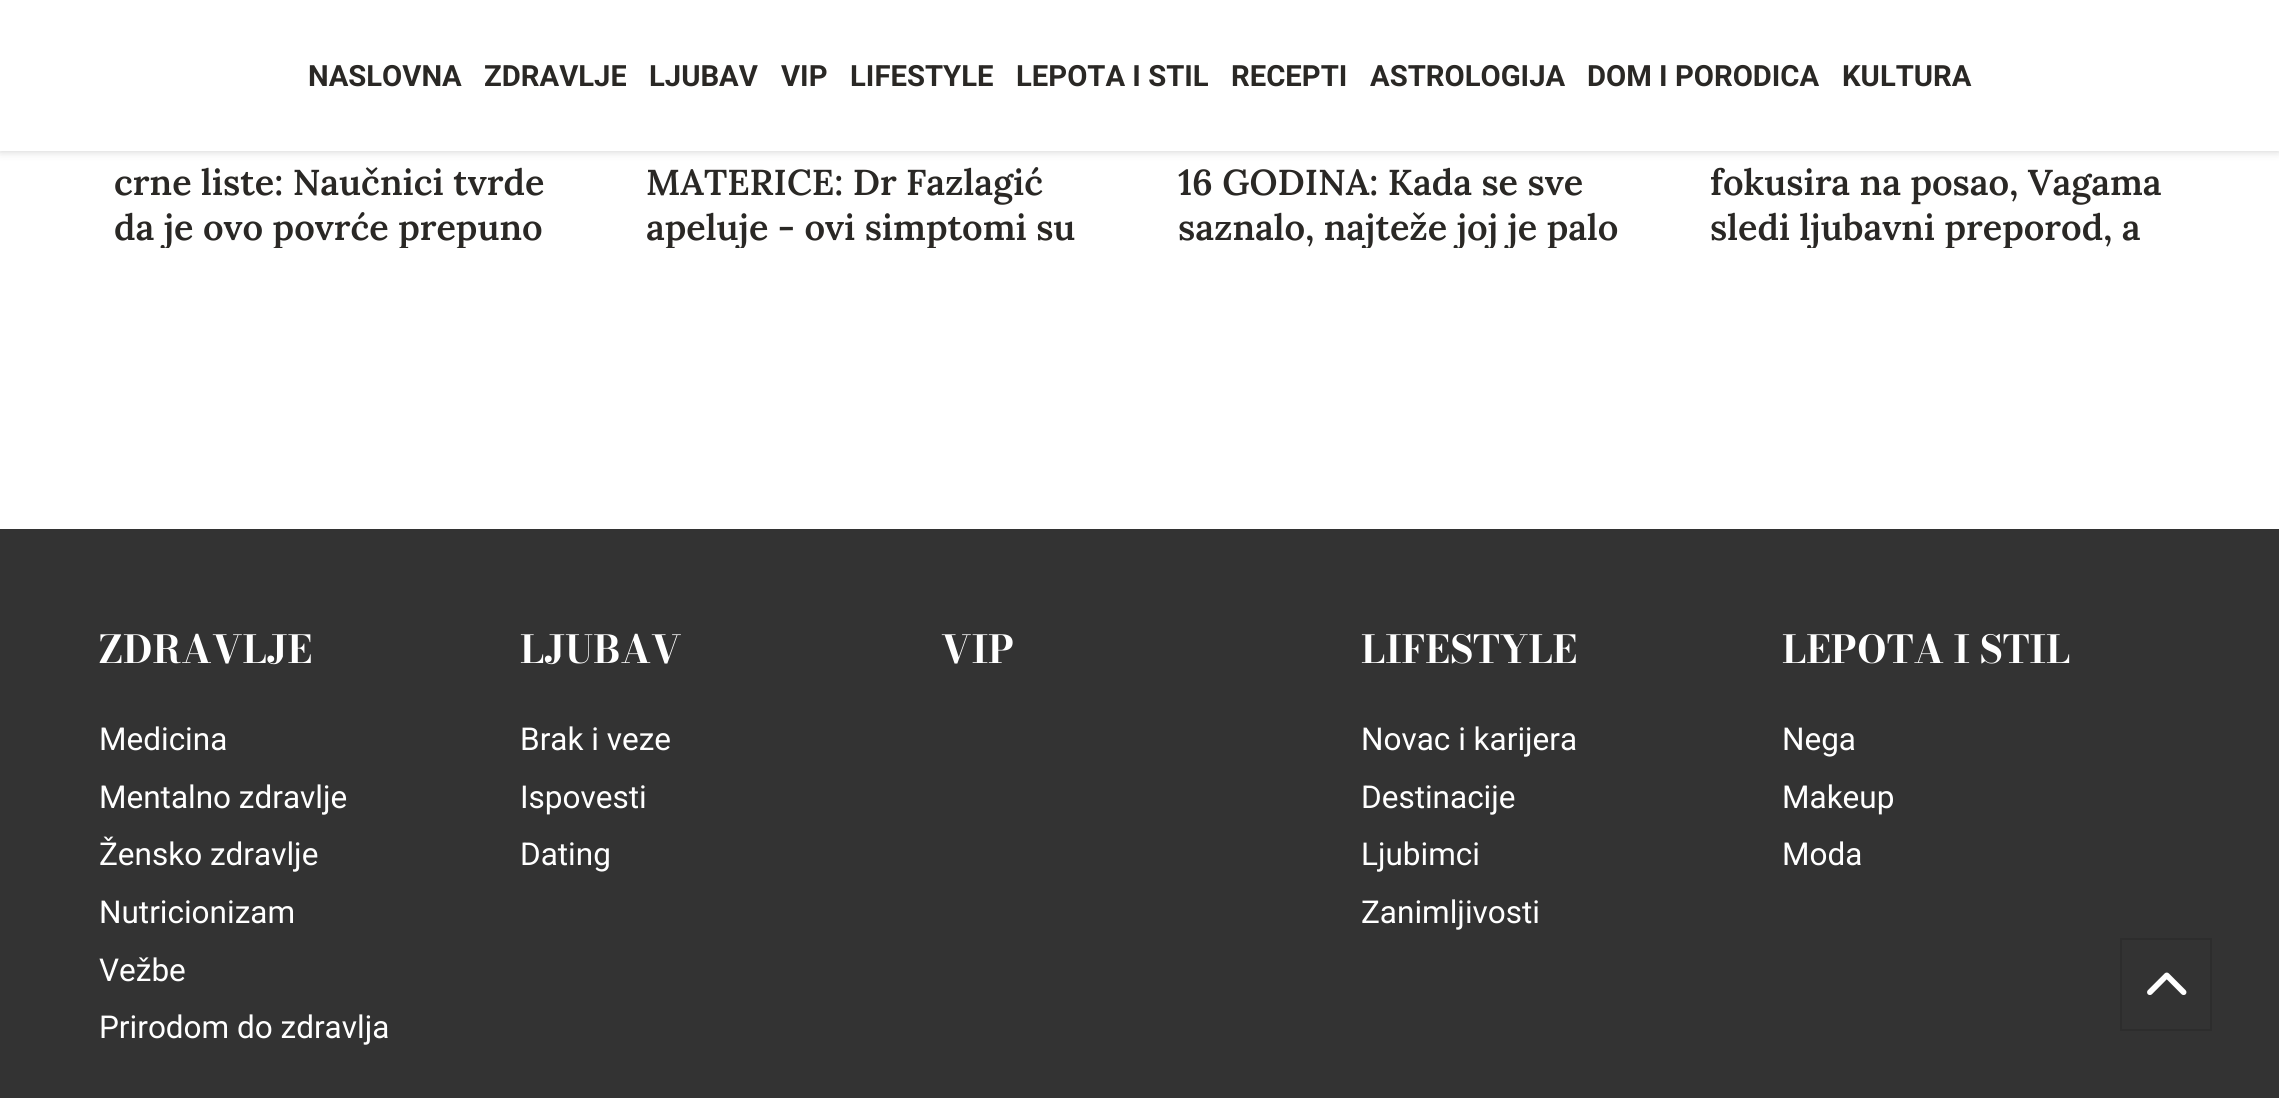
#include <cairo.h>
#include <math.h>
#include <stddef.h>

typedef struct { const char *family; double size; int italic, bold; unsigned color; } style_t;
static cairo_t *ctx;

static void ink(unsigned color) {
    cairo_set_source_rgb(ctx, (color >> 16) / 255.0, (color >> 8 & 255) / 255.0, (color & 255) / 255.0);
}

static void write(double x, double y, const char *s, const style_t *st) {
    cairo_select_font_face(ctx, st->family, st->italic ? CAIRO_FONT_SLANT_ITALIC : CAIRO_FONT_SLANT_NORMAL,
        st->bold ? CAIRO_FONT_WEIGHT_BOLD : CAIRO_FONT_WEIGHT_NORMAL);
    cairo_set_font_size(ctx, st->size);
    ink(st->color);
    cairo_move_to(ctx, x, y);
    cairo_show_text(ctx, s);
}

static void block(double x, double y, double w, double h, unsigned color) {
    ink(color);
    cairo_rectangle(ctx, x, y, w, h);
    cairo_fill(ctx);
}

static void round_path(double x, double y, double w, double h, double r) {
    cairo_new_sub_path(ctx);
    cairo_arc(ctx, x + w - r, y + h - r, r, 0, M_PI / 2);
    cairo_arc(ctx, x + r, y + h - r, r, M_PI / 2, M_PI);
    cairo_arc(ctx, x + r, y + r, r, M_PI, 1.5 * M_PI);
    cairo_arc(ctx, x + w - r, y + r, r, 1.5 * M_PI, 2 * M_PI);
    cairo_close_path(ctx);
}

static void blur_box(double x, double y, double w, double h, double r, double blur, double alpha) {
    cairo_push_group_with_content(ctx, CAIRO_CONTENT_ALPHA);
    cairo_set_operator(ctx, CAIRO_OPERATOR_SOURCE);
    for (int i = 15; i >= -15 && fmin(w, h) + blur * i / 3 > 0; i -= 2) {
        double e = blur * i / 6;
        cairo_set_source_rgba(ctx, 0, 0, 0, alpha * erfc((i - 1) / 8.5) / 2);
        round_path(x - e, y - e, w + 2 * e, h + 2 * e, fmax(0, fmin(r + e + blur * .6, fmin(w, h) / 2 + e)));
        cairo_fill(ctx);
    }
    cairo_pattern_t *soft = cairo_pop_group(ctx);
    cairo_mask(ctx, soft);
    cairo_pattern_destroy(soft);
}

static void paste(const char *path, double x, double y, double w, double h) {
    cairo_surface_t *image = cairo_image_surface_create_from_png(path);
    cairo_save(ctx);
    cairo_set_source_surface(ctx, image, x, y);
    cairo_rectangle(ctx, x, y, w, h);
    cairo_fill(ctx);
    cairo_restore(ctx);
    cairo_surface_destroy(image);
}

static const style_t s1 = {"Roboto", 29.25, 0, 1, 0x2a2825};
static const style_t s2 = {"Lora SemiBold", 36, 0, 0, 0x2a2825};
static const style_t s3 = {"Bodoni Moda", 38.25, 0, 1, 0xffffff};
static const style_t s4 = {"Roboto", 31.5, 0, 0, 0xffffff};

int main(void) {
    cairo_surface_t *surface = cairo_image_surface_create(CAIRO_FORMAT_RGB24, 2279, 1098);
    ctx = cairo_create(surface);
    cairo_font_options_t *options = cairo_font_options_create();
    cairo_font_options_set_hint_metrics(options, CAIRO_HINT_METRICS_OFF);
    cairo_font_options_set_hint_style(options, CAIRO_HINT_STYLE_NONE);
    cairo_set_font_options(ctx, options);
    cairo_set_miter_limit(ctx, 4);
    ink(0xffffff);
    cairo_paint(ctx);
    ink(0x000000);
    blur_box(0, 0, 2279, 151, 0, 4.5, 0.2);
    block(0, 0, 2279, 151, 0xffffff);
    write(308, 86, "NASLOVNA", &s1);
    write(484, 86, "ZDRAVLJE", &s1);
    write(649, 86, "LJUBAV", &s1);
    write(781, 86, "VIP", &s1);
    write(850, 86, "LIFESTYLE", &s1);
    write(1016, 86, "LEPOTA I STIL", &s1);
    write(1231, 86, "RECEPTI", &s1);
    write(1370, 86, "ASTROLOGIJA", &s1);
    write(1587, 86, "DOM I PORODICA", &s1);
    write(1842, 86, "KULTURA", &s1);
    cairo_save(ctx);
    cairo_rectangle(ctx, 115, 68, 454, 180);
    cairo_clip(ctx);
    write(114, 195, "crne liste: Naučnici tvrde", &s2);
    write(114, 240, "da je ovo povrće prepuno", &s2);
    cairo_restore(ctx);
    write(646, 195, "MATERICE: Dr Fazlagić", &s2);
    cairo_save(ctx);
    cairo_rectangle(ctx, 646, 68, 457, 180);
    cairo_clip(ctx);
    write(646, 240, "apeluje - ovi simptomi su", &s2);
    cairo_restore(ctx);
    write(1178, 195, "16 GODINA: Kada se sve", &s2);
    cairo_save(ctx);
    cairo_rectangle(ctx, 1179, 68, 455, 180);
    cairo_clip(ctx);
    write(1178, 240, "saznalo, najteže joj je palo", &s2);
    cairo_restore(ctx);
    write(1710, 195, "fokusira na posao, Vagama", &s2);
    cairo_save(ctx);
    cairo_rectangle(ctx, 1710, 68, 457, 180);
    cairo_clip(ctx);
    write(1710, 240, "sledi ljubavni preporod, a", &s2);
    cairo_restore(ctx);
    block(0, 529, 2279, 569, 0x333333);
    write(99, 663, "ZDRAVLJE", &s3);
    write(99, 750, "Medicina", &s4);
    write(99, 808, "Mentalno zdravlje", &s4);
    write(99, 865, "Žensko zdravlje", &s4);
    write(99, 923, "Nutricionizam", &s4);
    write(99, 981, "Vežbe", &s4);
    write(99, 1038, "Prirodom do zdravlja", &s4);
    write(520, 663, "LJUBAV", &s3);
    write(520, 750, "Brak i veze", &s4);
    write(520, 808, "Ispovesti", &s4);
    write(520, 865, "Dating", &s4);
    write(941, 663, "VIP", &s3);
    write(1361, 663, "LIFESTYLE", &s3);
    write(1361, 750, "Novac i karijera", &s4);
    write(1361, 808, "Destinacije", &s4);
    write(1361, 865, "Ljubimci", &s4);
    write(1361, 923, "Zanimljivosti", &s4);
    write(1782, 663, "LEPOTA I STIL", &s3);
    write(1782, 750, "Nega", &s4);
    write(1782, 808, "Makeup", &s4);
    write(1782, 865, "Moda", &s4);
    cairo_rectangle(ctx, 2121, 939, 90, 91);
    ink(0x2d2d2d);
    cairo_stroke(ctx);
    paste("pic1.png", 2147, 972, 40, 23);
    cairo_surface_write_to_png(surface, "screenshot.png");
    cairo_font_options_destroy(options);
    cairo_destroy(ctx);
    cairo_surface_destroy(surface);
    return 0;
}
